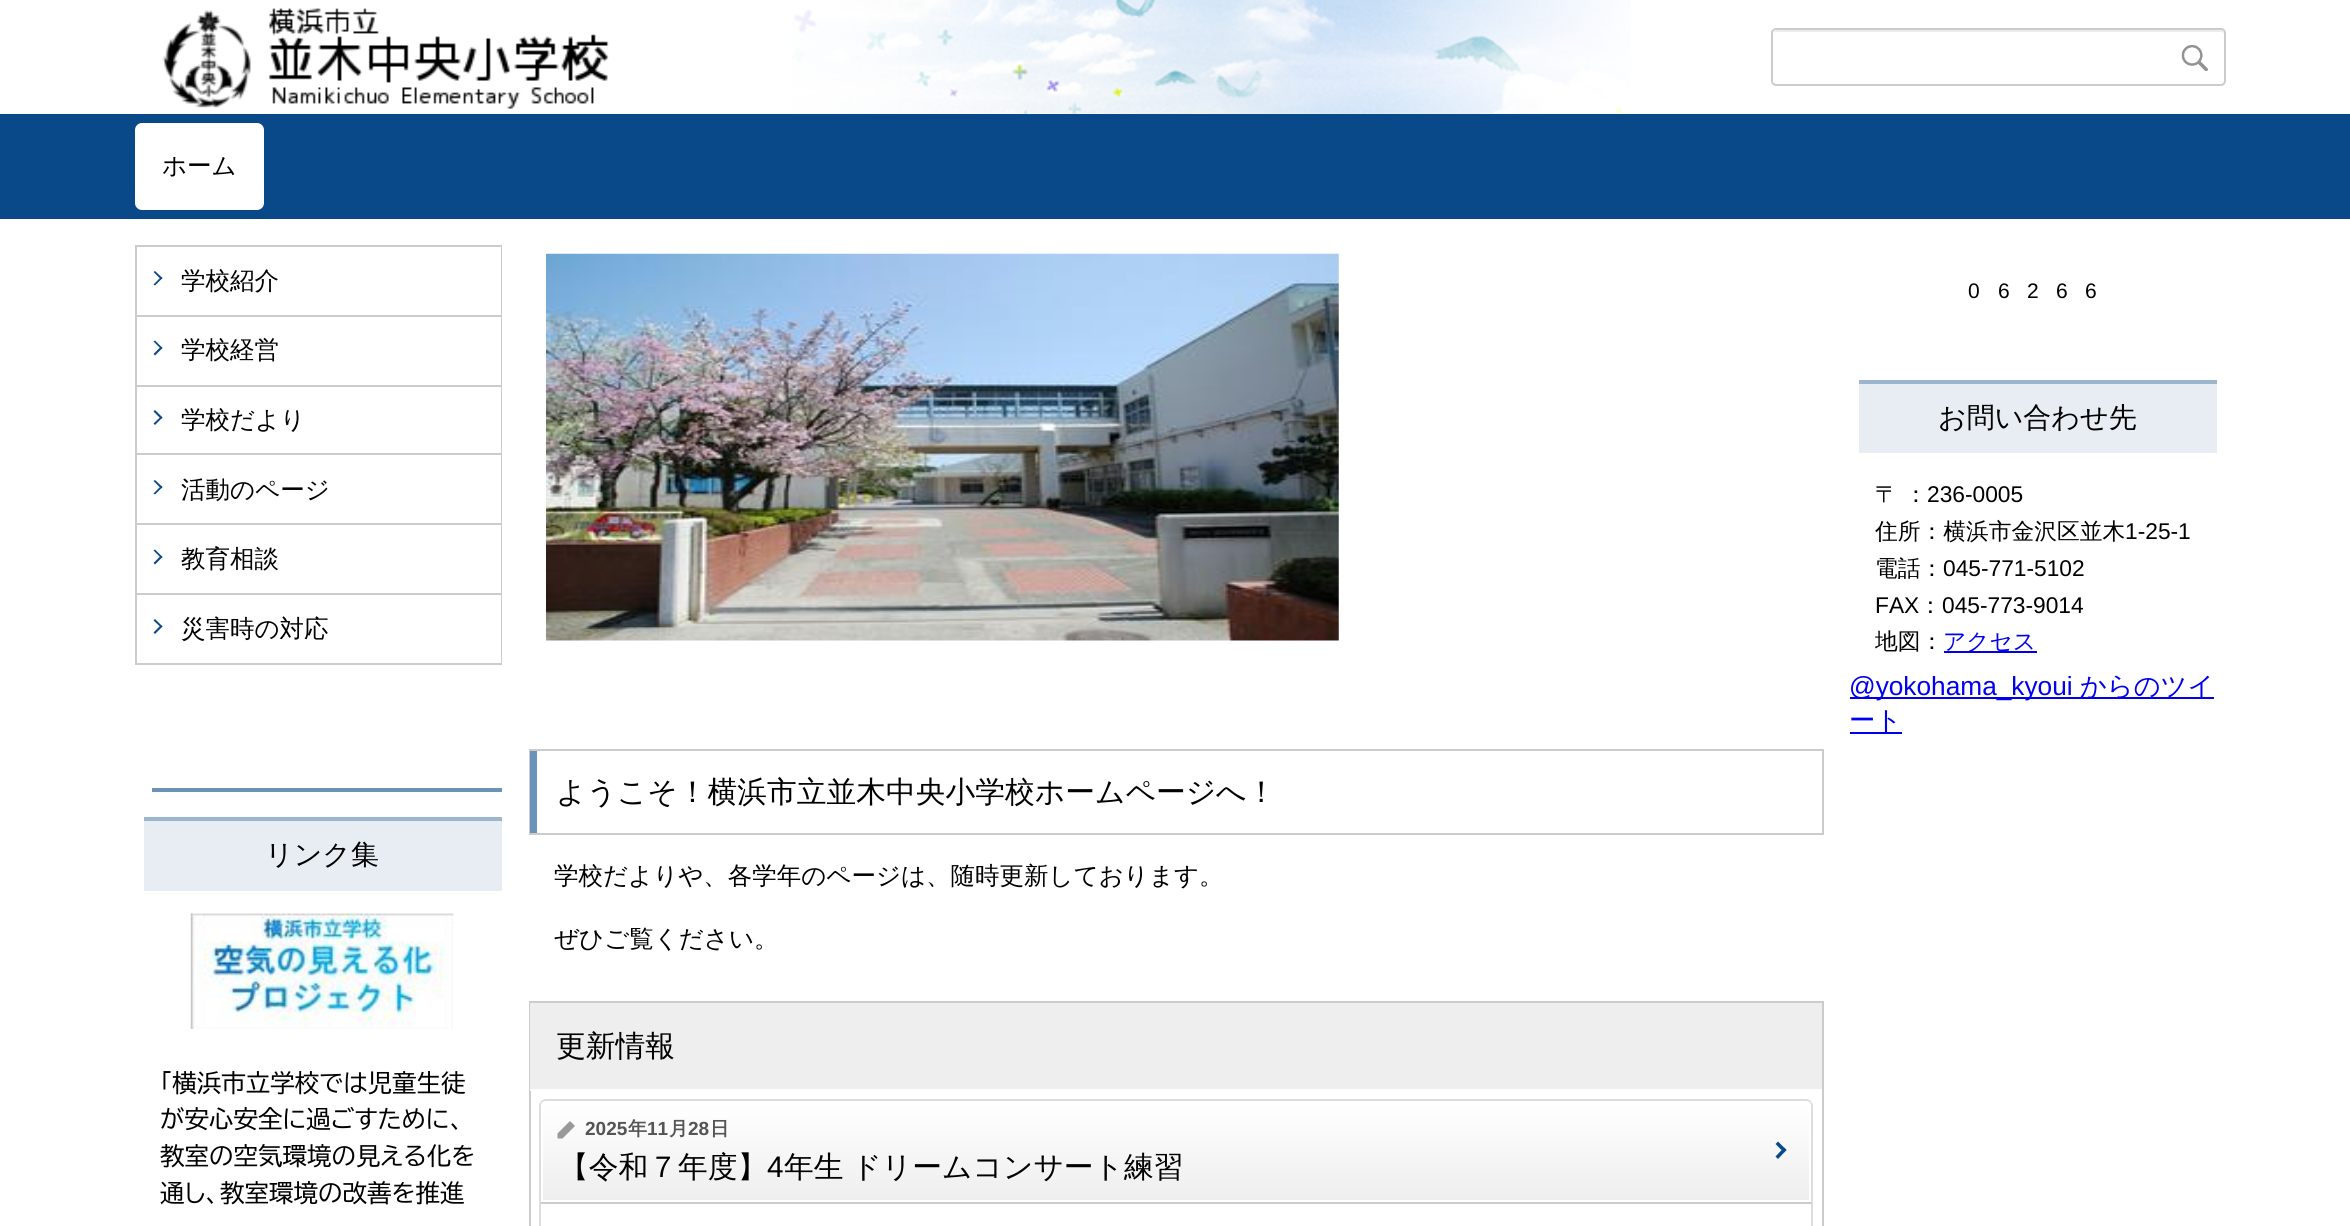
#include <cairo.h>
#include <math.h>
#include <stddef.h>

typedef struct { const char *family; double size; int italic, bold; unsigned color; } style_t;
static cairo_t *ctx;

static void ink(unsigned color) {
    cairo_set_source_rgb(ctx, (color >> 16) / 255.0, (color >> 8 & 255) / 255.0, (color & 255) / 255.0);
}

static void write(double x, double y, const char *s, const style_t *st) {
    cairo_select_font_face(ctx, st->family, st->italic ? CAIRO_FONT_SLANT_ITALIC : CAIRO_FONT_SLANT_NORMAL,
        st->bold ? CAIRO_FONT_WEIGHT_BOLD : CAIRO_FONT_WEIGHT_NORMAL);
    cairo_set_font_size(ctx, st->size);
    ink(st->color);
    cairo_move_to(ctx, x, y);
    cairo_show_text(ctx, s);
}

static void write_spaced(double x, double y, const char *s, double letter, double word) {
    cairo_move_to(ctx, x, y);
    while (*s) {
        char ch[5] = {0};
        int n = 0;
        do ch[n++] = *s++; while ((*s & 0xC0) == 0x80);
        cairo_show_text(ctx, ch);
        cairo_rel_move_to(ctx, letter + word * (*ch == ' '), 0);
    }
}

static void block(double x, double y, double w, double h, unsigned color) {
    ink(color);
    cairo_rectangle(ctx, x, y, w, h);
    cairo_fill(ctx);
}

static void round_path(double x, double y, double w, double h, double r) {
    cairo_new_sub_path(ctx);
    cairo_arc(ctx, x + w - r, y + h - r, r, 0, M_PI / 2);
    cairo_arc(ctx, x + r, y + h - r, r, M_PI / 2, M_PI);
    cairo_arc(ctx, x + r, y + r, r, M_PI, 1.5 * M_PI);
    cairo_arc(ctx, x + w - r, y + r, r, 1.5 * M_PI, 2 * M_PI);
    cairo_close_path(ctx);
}

static void paste(const char *path, double x, double y, double w, double h) {
    cairo_surface_t *image = cairo_image_surface_create_from_png(path);
    cairo_save(ctx);
    cairo_set_source_surface(ctx, image, x, y);
    cairo_rectangle(ctx, x, y, w, h);
    cairo_fill(ctx);
    cairo_restore(ctx);
    cairo_surface_destroy(image);
}

static const style_t s1 = {"WenQuanYi Zen Hei Medium", 24.5, 0, 0, 0x000000};
static const style_t s2 = {"WenQuanYi Zen Hei Medium", 28, 0, 0, 0x000000};
static const style_t s3 = {"BIZ UDPGothic", 24.5, 0, 0, 0x000000};
static const style_t s4 = {"Liberation Sans", 21, 0, 0, 0x000000};
static const style_t s5 = {"WenQuanYi Zen Hei Medium", 22.75, 0, 0, 0x000000};
static const style_t s6 = {"Liberation Sans", 22.75, 0, 0, 0x000000};
static const style_t s7 = {"WenQuanYi Zen Hei Medium", 22.75, 0, 0, 0x0000ee};
static const style_t s8 = {"Liberation Sans", 26.25, 0, 0, 0x0000ee};
static const style_t s9 = {"WenQuanYi Zen Hei Medium", 26.25, 0, 0, 0x0000ee};
static const style_t s10 = {"WenQuanYi Zen Hei Medium", 29.75, 0, 0, 0x000000};
static const style_t s11 = {"Liberation Sans", 19, 0, 1, 0x555555};
static const style_t s12 = {"WenQuanYi Zen Hei", 19, 0, 1, 0x555555};
static const style_t s13 = {"Liberation Sans", 29.75, 0, 0, 0x000000};

int main(void) {
    cairo_surface_t *surface = cairo_image_surface_create(CAIRO_FORMAT_RGB24, 2350, 1226);
    ctx = cairo_create(surface);
    cairo_font_options_t *options = cairo_font_options_create();
    cairo_font_options_set_hint_metrics(options, CAIRO_HINT_METRICS_OFF);
    cairo_font_options_set_hint_style(options, CAIRO_HINT_STYLE_NONE);
    cairo_set_font_options(ctx, options);
    cairo_set_miter_limit(ctx, 4);
    cairo_pattern_t *gradient;
    ink(0xffffff);
    cairo_paint(ctx);
    paste("pic1.png", 792, 0, 839, 114);
    paste("pic2.png", 162, 8, 447, 101);
    ink(0xececec);
    cairo_new_path(ctx);
    cairo_move_to(ctx, 1776, 32);
    cairo_line_to(ctx, 2221, 32);
    cairo_curve_to(ctx, 2223, 32, 2224, 33, 2224, 35);
    cairo_curve_to(ctx, 2224, 32, 2223, 30, 2220, 30);
    cairo_line_to(ctx, 1777, 30);
    cairo_line_to(ctx, 1775, 31);
    cairo_line_to(ctx, 1774, 32);
    cairo_line_to(ctx, 1773, 35);
    cairo_curve_to(ctx, 1773, 33, 1774, 32, 1776, 32);
    cairo_close_path(ctx);
    cairo_fill(ctx);
    round_path(1772, 29, 453, 56, 4);
    ink(0xcccccc);
    cairo_stroke(ctx);
    paste("pic3.png", 2181, 45, 27, 26);
    block(0, 114, 2350, 105, 0x0a4989);
    ink(0xffffff);
    round_path(136, 124, 127, 85, 6);
    cairo_fill_preserve(ctx);
    cairo_stroke(ctx);
    write(162, 174, "ホーム", &s1);
    cairo_rectangle(ctx, 136, 246, 365, 418);
    ink(0xcccccc);
    cairo_stroke(ctx);
    block(500, 247, 1, 68, 0xffffff);
    ink(0x0a4989);
    cairo_new_path(ctx);
    cairo_move_to(ctx, 155, 271);
    cairo_line_to(ctx, 162.5, 278);
    cairo_line_to(ctx, 161, 279.5);
    cairo_line_to(ctx, 153.5, 272);
    cairo_close_path(ctx);
    cairo_fill(ctx);
    cairo_new_path(ctx);
    cairo_move_to(ctx, 161, 277);
    cairo_line_to(ctx, 162.5, 278);
    cairo_line_to(ctx, 155, 285.5);
    cairo_line_to(ctx, 153.5, 284.5);
    cairo_close_path(ctx);
    cairo_fill(ctx);
    write(181, 289, "学校紹介", &s1);
    block(137, 315, 364, 2, 0xcccccc);
    block(500, 317, 1, 68, 0xffffff);
    ink(0x0a4989);
    cairo_new_path(ctx);
    cairo_move_to(ctx, 155, 340.5);
    cairo_line_to(ctx, 162.5, 348);
    cairo_line_to(ctx, 161, 349);
    cairo_line_to(ctx, 153.5, 341.5);
    cairo_close_path(ctx);
    cairo_fill(ctx);
    cairo_new_path(ctx);
    cairo_move_to(ctx, 161, 346.5);
    cairo_line_to(ctx, 162.5, 348);
    cairo_line_to(ctx, 155, 355.5);
    cairo_line_to(ctx, 153.5, 354);
    cairo_close_path(ctx);
    cairo_fill(ctx);
    write(181, 358, "学校経営", &s1);
    block(137, 385, 364, 2, 0xcccccc);
    block(500, 387, 1, 66, 0xffffff);
    ink(0x0a4989);
    cairo_new_path(ctx);
    cairo_move_to(ctx, 155, 410);
    cairo_line_to(ctx, 162.5, 417.5);
    cairo_line_to(ctx, 161, 419);
    cairo_line_to(ctx, 153.5, 411.5);
    cairo_close_path(ctx);
    cairo_fill(ctx);
    cairo_new_path(ctx);
    cairo_move_to(ctx, 161, 416.5);
    cairo_line_to(ctx, 162.5, 417.5);
    cairo_line_to(ctx, 155, 425);
    cairo_line_to(ctx, 153.5, 423.5);
    cairo_close_path(ctx);
    cairo_fill(ctx);
    write(181, 428, "学校だより", &s1);
    block(137, 453, 364, 2, 0xcccccc);
    block(500, 455, 1, 68, 0xffffff);
    ink(0x0a4989);
    cairo_new_path(ctx);
    cairo_move_to(ctx, 155, 480);
    cairo_line_to(ctx, 162.5, 487);
    cairo_line_to(ctx, 161, 488.5);
    cairo_line_to(ctx, 153.5, 481);
    cairo_close_path(ctx);
    cairo_fill(ctx);
    cairo_new_path(ctx);
    cairo_move_to(ctx, 161, 486);
    cairo_line_to(ctx, 162.5, 487);
    cairo_line_to(ctx, 155, 494.5);
    cairo_line_to(ctx, 153.5, 493.5);
    cairo_close_path(ctx);
    cairo_fill(ctx);
    write(181, 498, "活動のページ", &s1);
    block(137, 523, 364, 2, 0xcccccc);
    block(500, 525, 1, 68, 0xffffff);
    ink(0x0a4989);
    cairo_new_path(ctx);
    cairo_move_to(ctx, 155, 549.5);
    cairo_line_to(ctx, 162.5, 557);
    cairo_line_to(ctx, 161, 558);
    cairo_line_to(ctx, 153.5, 550.5);
    cairo_close_path(ctx);
    cairo_fill(ctx);
    cairo_new_path(ctx);
    cairo_move_to(ctx, 161, 555.5);
    cairo_line_to(ctx, 162.5, 557);
    cairo_line_to(ctx, 155, 564.5);
    cairo_line_to(ctx, 153.5, 563);
    cairo_close_path(ctx);
    cairo_fill(ctx);
    write(181, 567, "教育相談", &s1);
    block(137, 593, 364, 2, 0xcccccc);
    block(500, 595, 1, 68, 0xffffff);
    ink(0x0a4989);
    cairo_new_path(ctx);
    cairo_move_to(ctx, 155, 619);
    cairo_line_to(ctx, 162.5, 626.5);
    cairo_line_to(ctx, 161, 627.5);
    cairo_line_to(ctx, 153.5, 620.5);
    cairo_close_path(ctx);
    cairo_fill(ctx);
    cairo_new_path(ctx);
    cairo_move_to(ctx, 161, 625);
    cairo_line_to(ctx, 162.5, 626.5);
    cairo_line_to(ctx, 155, 634);
    cairo_line_to(ctx, 153.5, 632.5);
    cairo_close_path(ctx);
    cairo_fill(ctx);
    write(181, 637, "災害時の対応", &s1);
    block(152, 788, 350, 4, 0x6c92b8);
    block(144, 821, 358, 70, 0xe7edf3);
    block(144, 817, 358, 4, 0x9db6d0);
    write(265, 864, "リンク集", &s2);
    paste("pic4.png", 190, 913, 264, 116);
    write(160, 1092, "「横浜市立学校では児童生徒", &s3);
    write(160, 1128, "が安心安全に過ごすために、", &s3);
    write(160, 1165, "教室の空気環境の見える化を", &s3);
    write(160, 1202, "通し、教室環境の改善を推進", &s3);
    write(1968, 298, "0", &s4);
    write(1998, 298, "6", &s4);
    write(2027, 298, "2", &s4);
    write(2056, 298, "6", &s4);
    write(2085, 298, "6", &s4);
    block(1859, 384, 358, 69, 0xe7edf3);
    block(1859, 380, 358, 4, 0x9db6d0);
    write(1938, 427, "お問い合わせ先", &s2);
    write(1875, 502, "〒 ：", &s5);
    write(1927, 502, "236-0005", &s6);
    write(1875, 539, "住所：横浜市金沢区並木", &s5);
    write(2125, 539, "1-25-1", &s6);
    write(1875, 576, "電話：", &s5);
    write(1943, 576, "045-771-5102", &s6);
    write(1875, 613, "FAX", &s6);
    write(1919, 613, "：", &s5);
    write(1942, 613, "045-773-9014", &s6);
    write(1875, 649, "地図：", &s5);
    block(1944, 651, 93, 2, 0x0000ee);
    write(1943, 649, "アクセス", &s7);
    block(1850, 697, 364, 2, 0x0000ee);
    write(1849, 695, "@yokohama_kyoui", &s8);
    write(2080, 695, "からのツイ", &s9);
    block(1850, 732, 52, 2, 0x0000ee);
    write(1849, 729, "ート", &s9);
    paste("pic5.png", 546, 253, 793, 388);
    cairo_rectangle(ctx, 530, 750, 1293, 84);
    ink(0xcccccc);
    cairo_stroke(ctx);
    block(530, 751, 7, 82, 0x6c92b8);
    write(556, 802, "ようこそ！横浜市立並木中央小学校ホームページへ！", &s10);
    write(554, 884, "学校だよりや、各学年のページは、随時更新しております。", &s1);
    write(554, 947, "ぜひご覧ください。", &s1);
    cairo_rectangle(ctx, 530, 1002, 1293, 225);
    ink(0xcccccc);
    cairo_stroke(ctx);
    block(530, 1003, 1292, 86, 0xeeeeee);
    block(530, 1089, 1, 2, 0xffffff);
    write(556, 1056, "更新情報", &s10);
    ink(0xdddddd);
    cairo_new_path(ctx);
    cairo_move_to(ctx, 546, 1099);
    cairo_curve_to(ctx, 544, 1099, 542, 1100, 541, 1101);
    cairo_line_to(ctx, 542, 1102);
    cairo_curve_to(ctx, 543, 1102, 544, 1101, 546, 1101);
    cairo_line_to(ctx, 1806, 1101);
    cairo_curve_to(ctx, 1808, 1101, 1809, 1102, 1810, 1102);
    cairo_line_to(ctx, 1811, 1101);
    cairo_curve_to(ctx, 1810, 1100, 1808, 1099, 1806, 1099);
    cairo_close_path(ctx);
    cairo_fill(ctx);
    cairo_new_path(ctx);
    cairo_move_to(ctx, 1813, 1204);
    cairo_line_to(ctx, 1813, 1105);
    cairo_line_to(ctx, 1811, 1101);
    cairo_line_to(ctx, 1810, 1102);
    cairo_line_to(ctx, 1811, 1105);
    cairo_line_to(ctx, 1811, 1202);
    cairo_close_path(ctx);
    cairo_fill(ctx);
    ink(0xcccccc);
    cairo_new_path(ctx);
    cairo_move_to(ctx, 1813, 1204);
    cairo_line_to(ctx, 1811, 1202);
    cairo_line_to(ctx, 541, 1202);
    cairo_line_to(ctx, 539, 1204);
    cairo_close_path(ctx);
    cairo_fill(ctx);
    ink(0xdddddd);
    cairo_new_path(ctx);
    cairo_move_to(ctx, 539, 1204);
    cairo_line_to(ctx, 541, 1202);
    cairo_line_to(ctx, 541, 1105);
    cairo_line_to(ctx, 542, 1102);
    cairo_line_to(ctx, 541, 1101);
    cairo_curve_to(ctx, 540, 1102, 539, 1104, 539, 1106);
    cairo_close_path(ctx);
    cairo_fill(ctx);
    cairo_save(ctx);
    cairo_new_path(ctx);
    cairo_move_to(ctx, 548, 1101);
    cairo_line_to(ctx, 1804, 1101);
    cairo_curve_to(ctx, 1808, 1101, 1811, 1104, 1811, 1108);
    cairo_line_to(ctx, 1811, 1202);
    cairo_line_to(ctx, 541, 1202);
    cairo_line_to(ctx, 541, 1108);
    cairo_curve_to(ctx, 541, 1104, 544, 1101, 548, 1101);
    cairo_close_path(ctx);
    cairo_clip(ctx);
    gradient = cairo_pattern_create_linear(1176, 1103, 1176, 1201);
    cairo_pattern_add_color_stop_rgba(gradient, 0, 1, 1, 1, 1);
    cairo_pattern_add_color_stop_rgba(gradient, 1, 0.933, 0.933, 0.933, 1);
    cairo_set_source(ctx, gradient);
    cairo_pattern_destroy(gradient);
    cairo_rectangle(ctx, 541, 1103, 1270, 97);
    cairo_fill(ctx);
    cairo_restore(ctx);
    cairo_new_path(ctx);
    cairo_move_to(ctx, 548, 1102);
    cairo_line_to(ctx, 1804, 1102);
    cairo_curve_to(ctx, 1807.5, 1102, 1810, 1104.5, 1810, 1108);
    cairo_line_to(ctx, 1810, 1201);
    cairo_line_to(ctx, 542, 1201);
    cairo_line_to(ctx, 542, 1108);
    cairo_curve_to(ctx, 542, 1104.5, 544.5, 1102, 548, 1102);
    cairo_close_path(ctx);
    ink(0xffffff);
    cairo_stroke(ctx);
    ink(0x999999);
    cairo_new_path(ctx);
    cairo_move_to(ctx, 570, 1121);
    cairo_line_to(ctx, 575, 1126);
    cairo_line_to(ctx, 562.5, 1138.5);
    cairo_line_to(ctx, 557.5, 1133.5);
    cairo_close_path(ctx);
    cairo_fill(ctx);
    write(585, 1135, "2025", &s11);
    write(628, 1135, "年", &s12);
    write(647, 1135, "11", &s11);
    write(669, 1135, "月", &s12);
    write(688, 1135, "28", &s11);
    write(710, 1135, "日", &s12);
    ink(0x999999);
    cairo_new_path(ctx);
    cairo_move_to(ctx, 562.5, 1133.5);
    cairo_line_to(ctx, 562.5, 1138.5);
    cairo_line_to(ctx, 557.5, 1138.5);
    cairo_line_to(ctx, 557.5, 1133.5);
    cairo_close_path(ctx);
    cairo_fill(ctx);
    write(559, 1177, "【令和７年度】", &s10);
    write(767, 1177, "4", &s13);
    cairo_select_font_face(ctx, "WenQuanYi Zen Hei Medium", CAIRO_FONT_SLANT_NORMAL, CAIRO_FONT_WEIGHT_NORMAL);
    write_spaced(784, 1177, "年生 ドリームコンサート練習", 0, -1);
    ink(0x0a4989);
    cairo_new_path(ctx);
    cairo_move_to(ctx, 1778, 1141.5);
    cairo_line_to(ctx, 1786.5, 1150);
    cairo_line_to(ctx, 1784, 1152.5);
    cairo_line_to(ctx, 1775.5, 1144);
    cairo_close_path(ctx);
    cairo_fill(ctx);
    cairo_new_path(ctx);
    cairo_move_to(ctx, 1784, 1147.5);
    cairo_line_to(ctx, 1786.5, 1150);
    cairo_line_to(ctx, 1778, 1159);
    cairo_line_to(ctx, 1775.5, 1156.5);
    cairo_close_path(ctx);
    cairo_fill(ctx);
    ink(0xdddddd);
    cairo_set_fill_rule(ctx, CAIRO_FILL_RULE_EVEN_ODD);
    cairo_new_path(ctx);
    cairo_move_to(ctx, 539, 1204);
    cairo_line_to(ctx, 1813, 1204);
    cairo_line_to(ctx, 1813, 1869);
    cairo_curve_to(ctx, 1813, 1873, 1810, 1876, 1806, 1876);
    cairo_line_to(ctx, 546, 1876);
    cairo_curve_to(ctx, 542, 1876, 539, 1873, 539, 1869);
    cairo_close_path(ctx);
    cairo_move_to(ctx, 541, 1204);
    cairo_line_to(ctx, 1811, 1204);
    cairo_line_to(ctx, 1811, 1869);
    cairo_curve_to(ctx, 1811, 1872, 1809, 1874, 1806, 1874);
    cairo_line_to(ctx, 546, 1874);
    cairo_curve_to(ctx, 543, 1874, 541, 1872, 541, 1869);
    cairo_close_path(ctx);
    cairo_fill(ctx);
    cairo_surface_write_to_png(surface, "screenshot.png");
    cairo_font_options_destroy(options);
    cairo_destroy(ctx);
    cairo_surface_destroy(surface);
    return 0;
}
